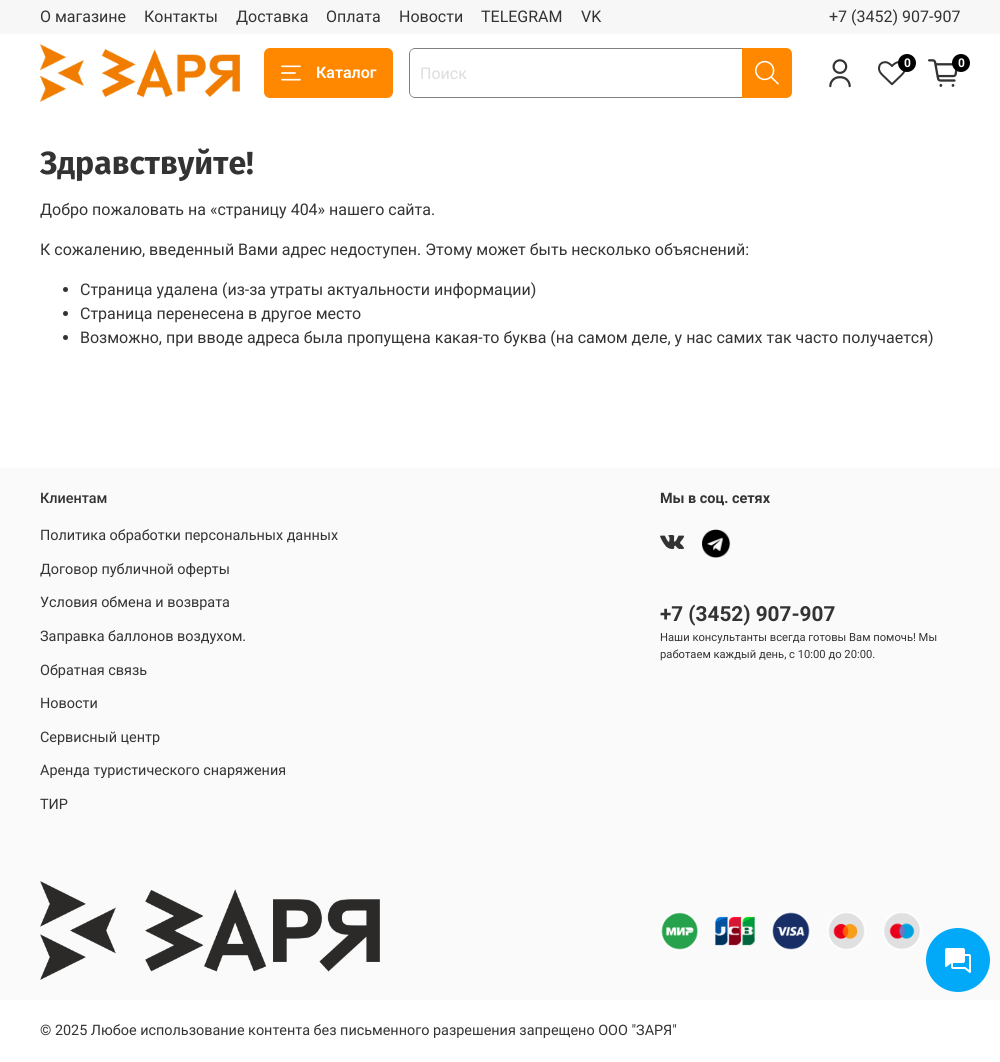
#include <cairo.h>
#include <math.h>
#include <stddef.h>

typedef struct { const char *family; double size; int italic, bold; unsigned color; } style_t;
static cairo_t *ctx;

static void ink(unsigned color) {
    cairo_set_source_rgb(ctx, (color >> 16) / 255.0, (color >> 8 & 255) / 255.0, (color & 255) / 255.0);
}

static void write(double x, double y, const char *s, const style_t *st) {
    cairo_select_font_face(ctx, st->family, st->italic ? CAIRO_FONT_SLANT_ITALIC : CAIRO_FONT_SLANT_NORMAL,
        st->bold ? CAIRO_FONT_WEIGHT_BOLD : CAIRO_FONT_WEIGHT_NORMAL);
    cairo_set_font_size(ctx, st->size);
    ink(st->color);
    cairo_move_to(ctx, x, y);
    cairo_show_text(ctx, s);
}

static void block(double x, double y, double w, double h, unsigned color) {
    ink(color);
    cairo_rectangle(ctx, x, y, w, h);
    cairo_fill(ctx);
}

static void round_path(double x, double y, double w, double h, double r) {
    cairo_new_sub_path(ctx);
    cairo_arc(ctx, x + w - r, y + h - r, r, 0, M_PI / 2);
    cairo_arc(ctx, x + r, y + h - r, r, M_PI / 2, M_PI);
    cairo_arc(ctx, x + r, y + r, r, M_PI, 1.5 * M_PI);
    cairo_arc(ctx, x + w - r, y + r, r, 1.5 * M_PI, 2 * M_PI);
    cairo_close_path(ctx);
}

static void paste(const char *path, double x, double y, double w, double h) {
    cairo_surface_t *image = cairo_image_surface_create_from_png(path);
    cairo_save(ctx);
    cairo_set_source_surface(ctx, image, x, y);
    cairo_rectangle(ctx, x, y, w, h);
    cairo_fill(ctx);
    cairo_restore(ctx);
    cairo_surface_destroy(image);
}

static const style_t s1 = {"Roboto", 16, 0, 0, 0x333333};
static const style_t s2 = {"Roboto", 12, 0, 1, 0xffffff};
static const style_t s3 = {"Roboto SemiBold", 16, 0, 0, 0xffffff};
static const style_t s4 = {"Roboto", 16, 0, 0, 0xdddddd};
static const style_t s5 = {"Fira Sans", 32, 0, 1, 0x333333};
static const style_t s6 = {"Roboto Medium", 14.4, 0, 0, 0x333333};
static const style_t s7 = {"Roboto", 14.4, 0, 0, 0x333333};
static const style_t s8 = {"Roboto", 14.4, 0, 1, 0x333333};
static const style_t s9 = {"Roboto", 20.75, 0, 1, 0x333333};
static const style_t s10 = {"Roboto", 11.2, 0, 0, 0x333333};

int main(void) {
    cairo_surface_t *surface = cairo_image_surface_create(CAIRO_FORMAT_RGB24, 1000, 1062);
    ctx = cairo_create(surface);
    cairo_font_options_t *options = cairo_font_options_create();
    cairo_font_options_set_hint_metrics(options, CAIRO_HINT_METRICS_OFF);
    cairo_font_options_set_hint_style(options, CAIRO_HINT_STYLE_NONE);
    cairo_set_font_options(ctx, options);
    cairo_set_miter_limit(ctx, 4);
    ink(0xffffff);
    cairo_paint(ctx);
    block(0, 0, 1000, 34, 0xf7f7f7);
    write(40, 22, "О магазине", &s1);
    write(144, 22, "Контакты", &s1);
    write(236, 22, "Доставка", &s1);
    write(326, 22, "Оплата", &s1);
    write(399, 22, "Новости", &s1);
    write(481, 22, "TELEGRAM", &s1);
    write(581, 22, "VK", &s1);
    write(829, 22, "+7 (3452) 907-907", &s1);
    paste("pic1.png", 40, 44, 200, 58);
    paste("pic2.png", 829, 59, 22, 29);
    paste("pic3.png", 878, 61, 28, 25);
    ink(0x000000);
    cairo_arc(ctx, 907, 63, 9, 0, 2 * M_PI);
    cairo_fill(ctx);
    write(904, 67, "0", &s2);
    paste("pic4.png", 928, 59, 30, 28);
    ink(0x000000);
    cairo_arc(ctx, 961, 63, 9, 0, 2 * M_PI);
    cairo_fill(ctx);
    write(958, 67, "0", &s2);
    ink(0xff8800);
    round_path(264, 48, 129, 50, 6);
    cairo_fill(ctx);
    paste("pic5.png", 281, 65, 20, 16);
    write(316, 78, "Каталог", &s3);
    ink(0x808080);
    cairo_set_fill_rule(ctx, CAIRO_FILL_RULE_EVEN_ODD);
    cairo_new_path(ctx);
    cairo_move_to(ctx, 415, 48);
    cairo_line_to(ctx, 742, 48);
    cairo_line_to(ctx, 742, 98);
    cairo_line_to(ctx, 415, 98);
    cairo_curve_to(ctx, 412, 98, 409, 95, 409, 92);
    cairo_line_to(ctx, 409, 54);
    cairo_curve_to(ctx, 409, 51, 412, 48, 415, 48);
    cairo_close_path(ctx);
    cairo_move_to(ctx, 415, 49);
    cairo_line_to(ctx, 742, 49);
    cairo_line_to(ctx, 742, 97);
    cairo_line_to(ctx, 415, 97);
    cairo_curve_to(ctx, 412, 97, 410, 95, 410, 92);
    cairo_line_to(ctx, 410, 54);
    cairo_curve_to(ctx, 410, 51, 412, 49, 415, 49);
    cairo_close_path(ctx);
    cairo_fill(ctx);
    write(420, 79, "Поиск", &s4);
    ink(0xff8800);
    cairo_new_path(ctx);
    cairo_move_to(ctx, 742, 48);
    cairo_line_to(ctx, 786, 48);
    cairo_curve_to(ctx, 789.5, 48, 792, 50.5, 792, 54);
    cairo_line_to(ctx, 792, 92);
    cairo_curve_to(ctx, 792, 95.5, 789.5, 98, 786, 98);
    cairo_line_to(ctx, 742, 98);
    cairo_close_path(ctx);
    cairo_fill(ctx);
    paste("pic6.png", 755, 60, 24, 25);
    write(40, 174, "Здравствуйте!", &s5);
    write(40, 215, "Добро пожаловать на «страницу 404» нашего сайта.", &s1);
    write(40, 255, "К сожалению, введенный Вами адрес недоступен. Этому может быть несколько объяснений:", &s1);
    cairo_new_path(ctx);
    cairo_arc(ctx, 65.5, 289.5, 2.5, 0, 2 * M_PI);
    cairo_fill(ctx);
    write(80, 295, "Страница удалена (из-за утраты актуальности информации)", &s1);
    cairo_new_path(ctx);
    cairo_arc(ctx, 65.5, 313.5, 2.5, 0, 2 * M_PI);
    cairo_fill(ctx);
    write(80, 319, "Страница перенесена в другое место", &s1);
    cairo_new_path(ctx);
    cairo_arc(ctx, 65.5, 337.5, 2.5, 0, 2 * M_PI);
    cairo_fill(ctx);
    write(80, 343, "Возможно, при вводе адреса была пропущена какая-то буква (на самом деле, у нас самих так часто получается)", &s1);
    block(0, 468, 1000, 532, 0xfafafa);
    write(40, 503, "Клиентам", &s6);
    write(40, 540, "Политика обработки персональных данных", &s7);
    write(40, 574, "Договор публичной оферты", &s7);
    write(40, 607, "Условия обмена и возврата", &s7);
    write(40, 641, "Заправка баллонов воздухом.", &s7);
    write(40, 675, "Обратная связь", &s7);
    write(40, 708, "Новости", &s7);
    write(40, 742, "Сервисный центр", &s7);
    write(40, 775, "Аренда туристического снаряжения", &s7);
    write(40, 809, "ТИР", &s7);
    write(660, 503, "Мы в соц. сетях", &s8);
    paste("pic7.png", 660, 535, 24, 14);
    paste("pic8.png", 702, 529, 29, 29);
    write(660, 621, "+7 (3452) 907-907", &s9);
    write(660, 641, "Наши консультанты всегда готовы Вам помочь! Мы", &s10);
    write(660, 658, "работаем каждый день, с 10:00 до 20:00.", &s10);
    paste("pic9.png", 40, 881, 340, 99);
    paste("pic10.png", 661, 912, 38, 39);
    paste("pic11.png", 715, 916, 40, 30);
    paste("pic12.png", 771, 912, 40, 39);
    paste("pic13.png", 827, 912, 39, 38);
    paste("pic14.png", 882, 912, 40, 38);
    write(40, 1035, "© 2025 Любое использование контента без письменного разрешения запрещено ООО \"ЗАРЯ\"", &s7);
    ink(0x01a9f8);
    cairo_new_path(ctx);
    cairo_arc(ctx, 958, 960, 32, 0, 2 * M_PI);
    cairo_fill(ctx);
    paste("pic15.png", 945, 948, 26, 25);
    cairo_surface_write_to_png(surface, "screenshot.png");
    cairo_font_options_destroy(options);
    cairo_destroy(ctx);
    cairo_surface_destroy(surface);
    return 0;
}
